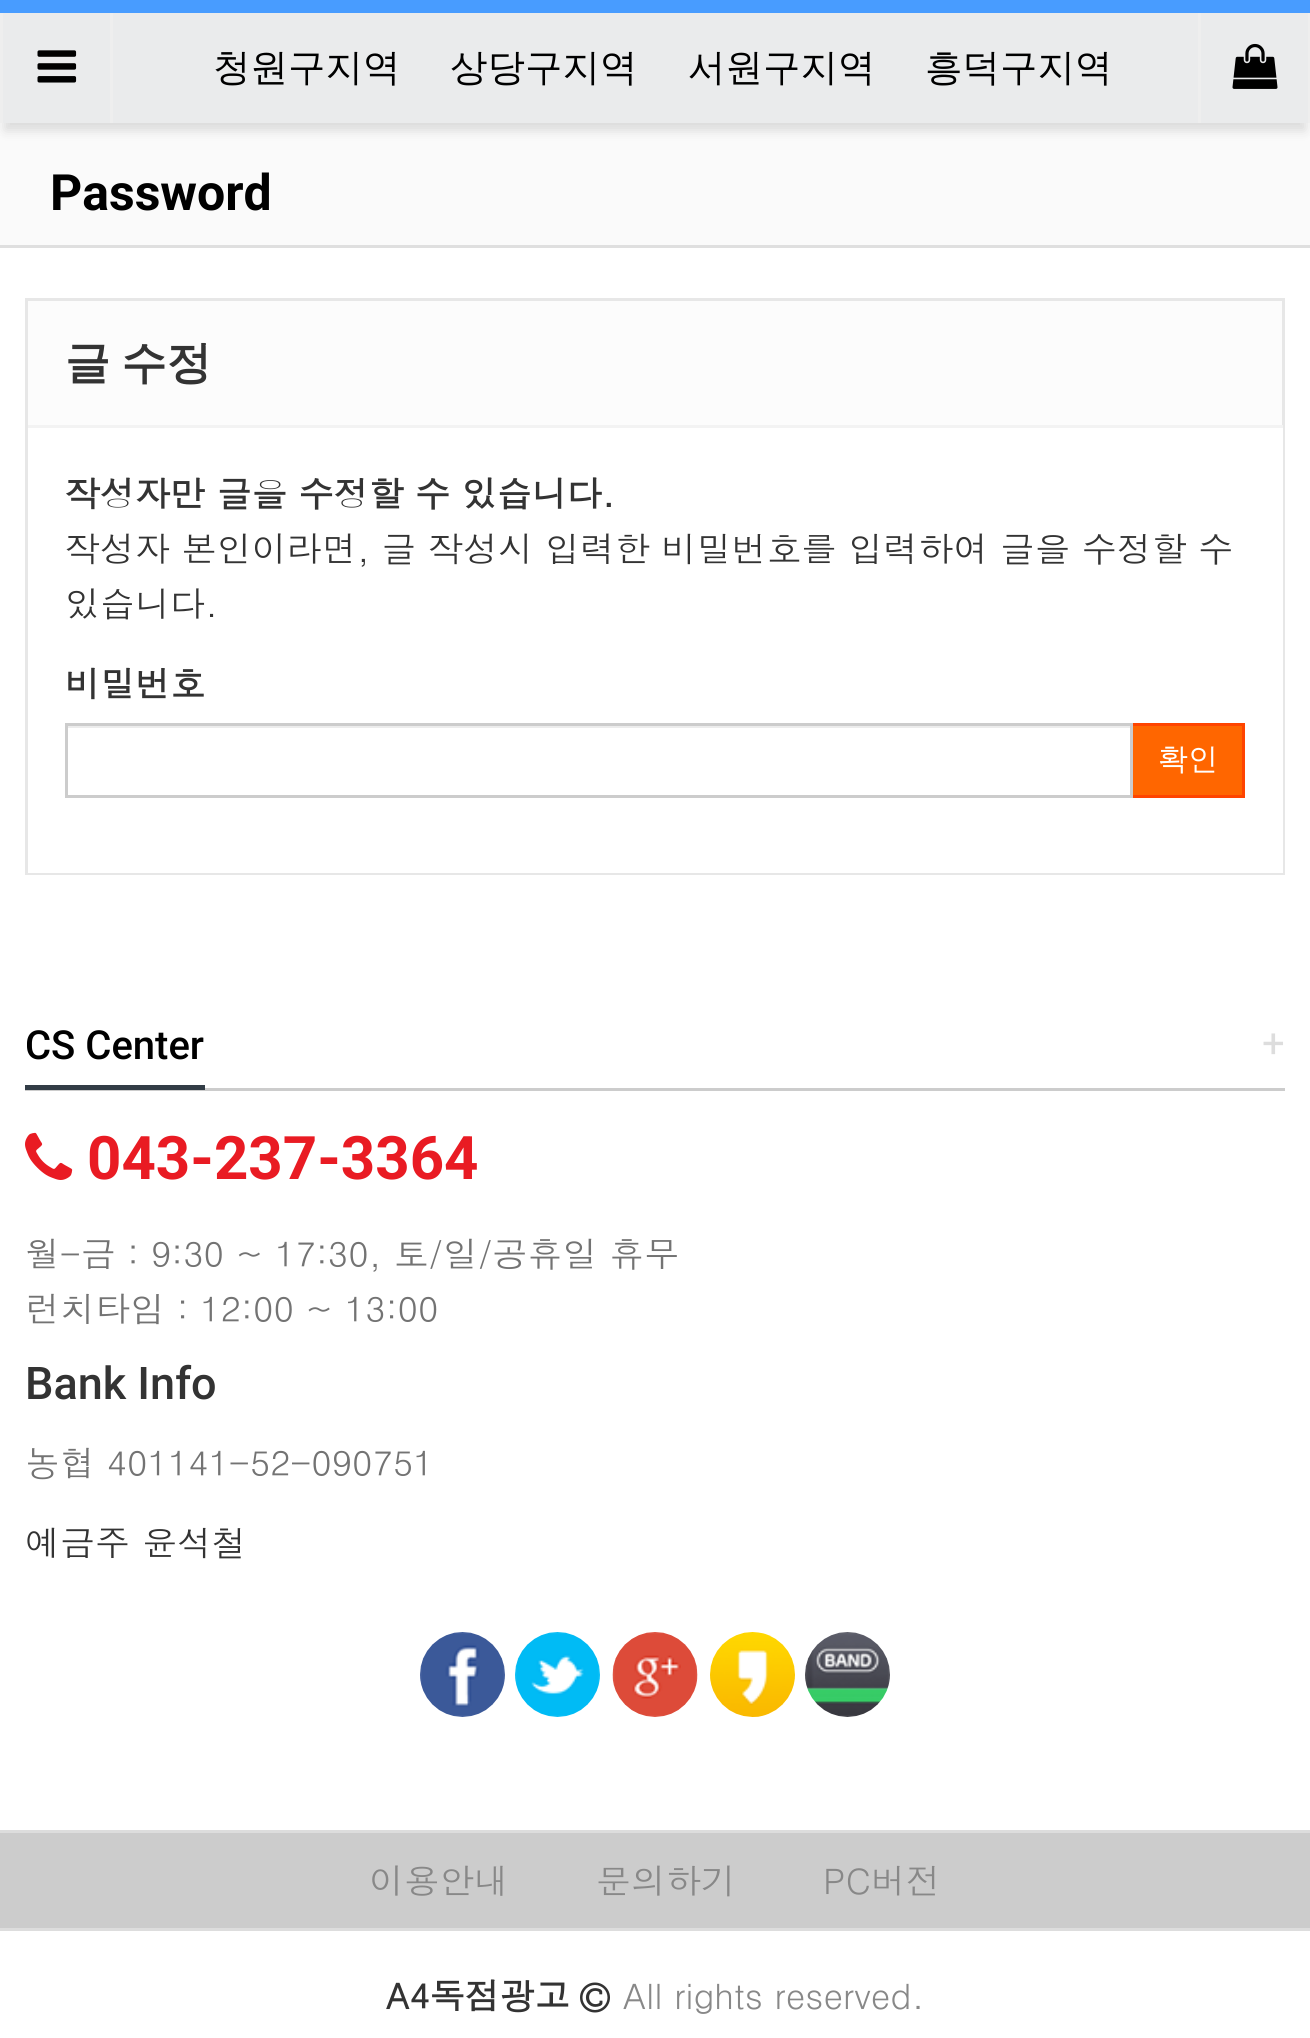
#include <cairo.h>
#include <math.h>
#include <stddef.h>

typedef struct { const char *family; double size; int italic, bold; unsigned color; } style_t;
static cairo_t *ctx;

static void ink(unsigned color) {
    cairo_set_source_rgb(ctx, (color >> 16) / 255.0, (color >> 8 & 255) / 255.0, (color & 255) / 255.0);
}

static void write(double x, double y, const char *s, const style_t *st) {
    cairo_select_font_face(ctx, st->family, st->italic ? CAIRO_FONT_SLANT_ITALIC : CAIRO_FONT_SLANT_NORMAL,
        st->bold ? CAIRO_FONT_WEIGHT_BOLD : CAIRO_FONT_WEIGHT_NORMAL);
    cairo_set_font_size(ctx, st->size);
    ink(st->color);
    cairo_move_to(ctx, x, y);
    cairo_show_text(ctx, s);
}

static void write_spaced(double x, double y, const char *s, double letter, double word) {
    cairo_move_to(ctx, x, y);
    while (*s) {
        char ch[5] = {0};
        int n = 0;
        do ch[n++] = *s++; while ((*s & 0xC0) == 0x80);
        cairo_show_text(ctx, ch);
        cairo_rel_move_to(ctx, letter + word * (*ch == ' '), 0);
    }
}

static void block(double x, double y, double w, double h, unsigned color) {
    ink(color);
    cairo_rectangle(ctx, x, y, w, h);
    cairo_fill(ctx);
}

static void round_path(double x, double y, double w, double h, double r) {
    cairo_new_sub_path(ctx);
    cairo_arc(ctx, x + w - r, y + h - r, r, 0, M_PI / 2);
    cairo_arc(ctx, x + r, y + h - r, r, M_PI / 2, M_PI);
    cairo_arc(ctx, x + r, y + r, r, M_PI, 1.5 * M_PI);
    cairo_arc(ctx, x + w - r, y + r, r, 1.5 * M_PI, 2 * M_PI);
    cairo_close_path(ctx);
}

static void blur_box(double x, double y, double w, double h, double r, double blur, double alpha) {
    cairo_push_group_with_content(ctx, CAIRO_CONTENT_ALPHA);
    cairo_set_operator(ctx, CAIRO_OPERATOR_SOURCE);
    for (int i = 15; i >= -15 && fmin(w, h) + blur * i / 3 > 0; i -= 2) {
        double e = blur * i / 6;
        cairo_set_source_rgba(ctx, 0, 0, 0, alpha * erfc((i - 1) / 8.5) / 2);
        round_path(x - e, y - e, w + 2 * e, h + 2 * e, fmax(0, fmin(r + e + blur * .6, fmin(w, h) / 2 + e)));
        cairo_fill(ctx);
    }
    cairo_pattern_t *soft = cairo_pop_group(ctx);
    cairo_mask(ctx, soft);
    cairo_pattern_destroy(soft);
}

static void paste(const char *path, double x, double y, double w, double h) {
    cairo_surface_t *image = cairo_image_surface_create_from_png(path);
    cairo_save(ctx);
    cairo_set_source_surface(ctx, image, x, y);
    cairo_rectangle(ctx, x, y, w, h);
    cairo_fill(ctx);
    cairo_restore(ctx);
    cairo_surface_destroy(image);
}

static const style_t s1 = {"WenQuanYi Zen Hei Medium", 37.5, 0, 0, 0x000000};
static const style_t s2 = {"Roboto", 50, 0, 1, 0x000000};
static const style_t s3 = {"Dotum", 35, 0, 1, 0x333333};
static const style_t s4 = {"Dotum", 35, 0, 0, 0x333333};
static const style_t s5 = {"WenQuanYi Zen Hei Medium", 30, 0, 0, 0xffffff};
static const style_t s6 = {"Roboto Medium", 40, 0, 0, 0x000000};
static const style_t s7 = {"Roboto", 40, 0, 0, 0xdddddd};
static const style_t s8 = {"Roboto", 60, 0, 1, 0xe91b23};
static const style_t s9 = {"Dotum", 35, 0, 0, 0x737373};
static const style_t s10 = {"Roboto Medium", 45, 0, 0, 0x333333};
static const style_t s11 = {"Dotum", 35, 0, 0, 0x888888};

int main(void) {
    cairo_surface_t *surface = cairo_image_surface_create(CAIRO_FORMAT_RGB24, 1310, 2038);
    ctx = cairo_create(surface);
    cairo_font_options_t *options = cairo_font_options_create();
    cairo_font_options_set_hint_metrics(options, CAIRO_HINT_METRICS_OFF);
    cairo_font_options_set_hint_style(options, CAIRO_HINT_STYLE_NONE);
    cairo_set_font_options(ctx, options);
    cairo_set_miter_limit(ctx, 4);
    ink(0xffffff);
    cairo_paint(ctx);
    block(0, 0, 1310, 13, 0x489cff);
    block(0, 123, 1310, 122, 0xfafafa);
    ink(0x191919);
    blur_box(5, 30, 1300, 100, 0, 6, 0.15);
    block(3, 13, 1305, 110, 0xeaebec);
    block(0, 13, 3, 110, 0xeeeeee);
    paste("pic1.png", 37, 50, 40, 33);
    block(110, 13, 3, 110, 0xeeeeee);
    write(213, 80, "청원구지역", &s1);
    write(450, 80, "상당구지역", &s1);
    write(688, 80, "서원구지역", &s1);
    write(925, 80, "흥덕구지역", &s1);
    block(1308, 13, 2, 110, 0xeeeeee);
    block(1198, 13, 3, 110, 0xeeeeee);
    paste("pic2.png", 1232, 43, 46, 46);
    block(0, 245, 1310, 3, 0xdfdfdf);
    write(50, 210, "Password", &s2);
    block(28, 301, 1254, 124, 0xfcfcfc);
    cairo_rectangle(ctx, 26.5, 299.5, 1257, 574);
    ink(0xe7e7e7);
    cairo_set_line_width(ctx, 3);
    cairo_stroke(ctx);
    block(28, 425, 1255, 3, 0xf3f3f3);
    cairo_select_font_face(ctx, "WenQuanYi Zen Hei", CAIRO_FONT_SLANT_NORMAL, CAIRO_FONT_WEIGHT_BOLD);
    cairo_set_font_size(ctx, 45);
    ink(0x333333);
    write_spaced(65, 378, "글 수정", 0, -2);
    block(28, 428, 1255, 445, 0xffffff);
    write(65, 507, "작성자만 글을 수정할 수 있습니다.", &s3);
    write(65, 562, "작성자 본인이라면, 글 작성시 입력한 비밀번호를 입력하여 글을 수정할 수", &s4);
    write(65, 617, "있습니다.", &s4);
    write(65, 697, "비밀번호", &s3);
    block(68, 726, 1062, 2, 0xececec);
    ink(0xff6600);
    cairo_rectangle(ctx, 1131.5, 724.5, 112, 72);
    cairo_fill_preserve(ctx);
    ink(0xff4400);
    cairo_stroke(ctx);
    cairo_rectangle(ctx, 66.5, 724.5, 1065, 72);
    ink(0xcccccc);
    cairo_stroke(ctx);
    write(1158, 769, "확인", &s5);
    block(25, 1088, 1260, 3, 0xcccccc);
    block(25, 1085, 180, 5, 0x323c46);
    write(25, 1059, "CS Center", &s6);
    write(1262, 1057, "+", &s7);
    paste("pic3.png", 25, 1132, 48, 48);
    write(87, 1179, "043-237-3364", &s8);
    write(25, 1267, "월-금 : 9:30 ~ 17:30, 토/일/공휴일 휴무", &s9);
    write(25, 1322, "런치타임 : 12:00 ~ 13:00", &s9);
    write(25, 1399, "Bank Info", &s10);
    write(25, 1476, "농협 401141-52-090751", &s9);
    write(25, 1556, "예금주 윤석철", &s4);
    paste("pic4.png", 420, 1632, 85, 85);
    paste("pic5.png", 515, 1632, 85, 85);
    paste("pic6.png", 612, 1632, 86, 85);
    paste("pic7.png", 710, 1632, 85, 85);
    paste("pic8.png", 805, 1632, 85, 85);
    block(0, 1833, 1310, 95, 0xcccccc);
    block(0, 1830, 1310, 3, 0xdddddd);
    block(0, 1928, 1310, 3, 0xdddddd);
    write(369, 1894, "이용안내", &s11);
    write(596, 1894, "문의하기", &s11);
    write(823, 1894, "PC버전", &s11);
    write(386, 2009, "A4독점광고", &s3);
    paste("pic9.png", 580, 1982, 30, 31);
    write(623, 2009, "All rights reserved.", &s11);
    cairo_surface_write_to_png(surface, "screenshot.png");
    cairo_font_options_destroy(options);
    cairo_destroy(ctx);
    cairo_surface_destroy(surface);
    return 0;
}
